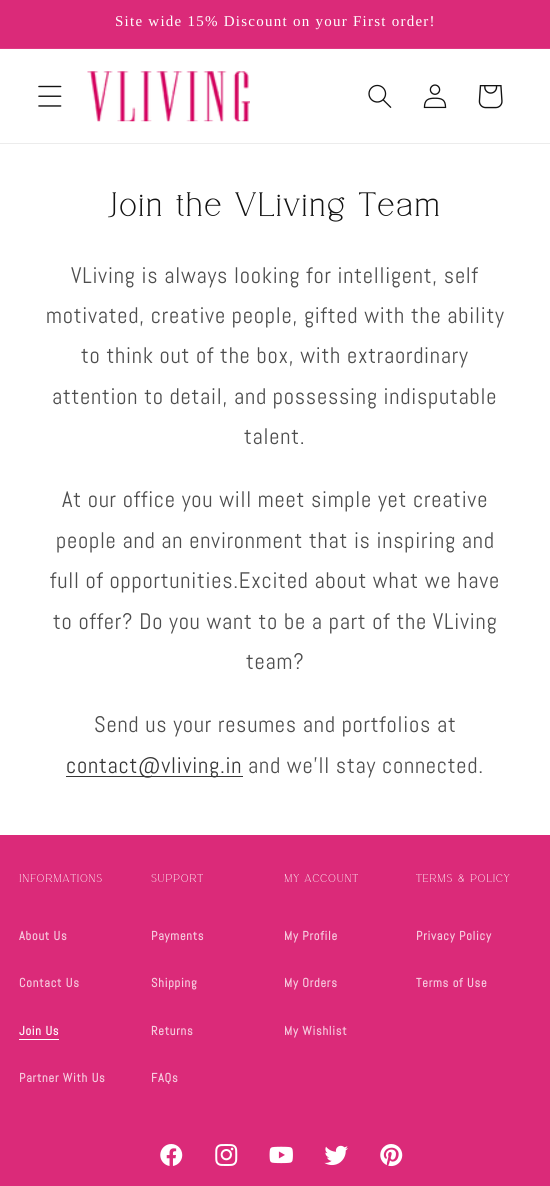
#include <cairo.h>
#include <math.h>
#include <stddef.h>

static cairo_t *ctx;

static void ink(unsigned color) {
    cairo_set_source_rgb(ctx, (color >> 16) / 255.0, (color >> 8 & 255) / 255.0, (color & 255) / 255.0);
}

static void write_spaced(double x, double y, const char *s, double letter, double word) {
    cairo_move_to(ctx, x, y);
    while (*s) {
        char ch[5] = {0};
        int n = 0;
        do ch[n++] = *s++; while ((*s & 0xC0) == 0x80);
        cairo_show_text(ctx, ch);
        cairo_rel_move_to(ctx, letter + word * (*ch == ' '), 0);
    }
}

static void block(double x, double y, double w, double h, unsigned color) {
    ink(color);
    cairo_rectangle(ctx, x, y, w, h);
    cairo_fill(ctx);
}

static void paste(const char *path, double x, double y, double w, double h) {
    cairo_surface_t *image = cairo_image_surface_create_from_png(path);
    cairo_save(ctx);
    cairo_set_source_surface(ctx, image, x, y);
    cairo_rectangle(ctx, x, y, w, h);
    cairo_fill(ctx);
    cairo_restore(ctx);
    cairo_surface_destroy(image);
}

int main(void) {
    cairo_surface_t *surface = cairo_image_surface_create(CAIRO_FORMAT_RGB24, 550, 1186);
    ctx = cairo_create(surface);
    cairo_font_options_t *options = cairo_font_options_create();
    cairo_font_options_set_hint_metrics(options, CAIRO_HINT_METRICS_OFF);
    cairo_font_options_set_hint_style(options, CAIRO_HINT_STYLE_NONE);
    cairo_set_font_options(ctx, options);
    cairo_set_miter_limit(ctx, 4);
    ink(0xffffff);
    cairo_paint(ctx);
    block(0, 0, 550, 48, 0xdb2a79);
    block(0, 48, 550, 1, 0xde3b84);
    cairo_select_font_face(ctx, "Liberation Serif", CAIRO_FONT_SLANT_NORMAL, CAIRO_FONT_WEIGHT_NORMAL);
    cairo_set_font_size(ctx, 15);
    ink(0xffffff);
    write_spaced(115, 26, "Site wide 15% Discount on your First order!", 1.25, 0);
    block(0, 143, 550, 1, 0xececec);
    paste("pic1.png", 38, 85, 24, 22);
    paste("pic2.png", 87, 71, 163, 51);
    paste("pic3.png", 368, 84, 24, 24);
    paste("pic4.png", 423, 84, 24, 25);
    paste("pic5.png", 478, 85, 25, 24);
    cairo_select_font_face(ctx, "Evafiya", CAIRO_FONT_SLANT_NORMAL, CAIRO_FONT_WEIGHT_BOLD);
    cairo_set_font_size(ctx, 37.5);
    ink(0x121212);
    write_spaced(110, 216, "Join the VLiving Team", 0.75, 0);
    cairo_select_font_face(ctx, "Abel", CAIRO_FONT_SLANT_NORMAL, CAIRO_FONT_WEIGHT_NORMAL);
    cairo_set_font_size(ctx, 22.5);
    ink(0x4d4d4d);
    write_spaced(71, 283, "VLiving is always looking for intelligent, self", 0.75, 0);
    write_spaced(46, 323, "motivated, creative people, gifted with the ability", 0.75, 0);
    write_spaced(81, 363, "to think out of the box, with extraordinary", 0.75, 0);
    write_spaced(52, 404, "attention to detail, and possessing indisputable", 0.75, 0);
    write_spaced(244, 444, "talent.", 0.75, 0);
    write_spaced(62, 507, "At our office you will meet simple yet creative", 0.75, 0);
    write_spaced(56, 548, "people and an environment that is inspiring and", 0.75, 0);
    write_spaced(50, 588, "full of opportunities.Excited about what we have", 0.75, 0);
    write_spaced(53, 629, "to offer? Do you want to be a part of the VLiving", 0.75, 0);
    write_spaced(246, 669, "team?", 0.75, 0);
    write_spaced(94, 732, "Send us your resumes and portfolios at", 0.75, 0);
    block(66, 776, 177, 1, 0x363636);
    ink(0x353535);
    write_spaced(66, 773, "contact@vliving.in", 0.75, 0);
    ink(0x4d4d4d);
    write_spaced(248, 773, "and we’ll stay connected.", 0.75, 0);
    block(0, 835, 550, 351, 0xdb2a79);
    cairo_select_font_face(ctx, "Evafiya", CAIRO_FONT_SLANT_NORMAL, CAIRO_FONT_WEIGHT_BOLD);
    cairo_set_font_size(ctx, 12.5);
    ink(0xffffff);
    write_spaced(19, 882, "INFORMATIONS", 0.75, 0);
    cairo_select_font_face(ctx, "Abel", CAIRO_FONT_SLANT_NORMAL, CAIRO_FONT_WEIGHT_BOLD);
    ink(0xf6cade);
    write_spaced(19, 940, "About Us", 0.75, 0);
    write_spaced(19, 987, "Contact Us", 0.75, 0);
    ink(0xffffff);
    write_spaced(19, 1035, "Join Us", 0.75, 0);
    block(19, 1039, 40, 1, 0xffffff);
    ink(0xf6cade);
    write_spaced(19, 1082, "Partner With Us", 0.75, 0);
    cairo_select_font_face(ctx, "Evafiya", CAIRO_FONT_SLANT_NORMAL, CAIRO_FONT_WEIGHT_BOLD);
    ink(0xffffff);
    write_spaced(151, 882, "SUPPORT", 0.75, 0);
    cairo_select_font_face(ctx, "Abel", CAIRO_FONT_SLANT_NORMAL, CAIRO_FONT_WEIGHT_BOLD);
    ink(0xf6cade);
    write_spaced(151, 940, "Payments", 0.75, 0);
    write_spaced(151, 987, "Shipping", 0.75, 0);
    write_spaced(151, 1035, "Returns", 0.75, 0);
    write_spaced(151, 1082, "FAQs", 0.75, 0);
    cairo_select_font_face(ctx, "Evafiya", CAIRO_FONT_SLANT_NORMAL, CAIRO_FONT_WEIGHT_BOLD);
    ink(0xffffff);
    write_spaced(284, 882, "MY ACCOUNT", 0.75, 0);
    cairo_select_font_face(ctx, "Abel", CAIRO_FONT_SLANT_NORMAL, CAIRO_FONT_WEIGHT_BOLD);
    ink(0xf6cade);
    write_spaced(284, 940, "My Profile", 0.75, 0);
    write_spaced(284, 987, "My Orders", 0.75, 0);
    write_spaced(284, 1035, "My Wishlist", 0.75, 0);
    cairo_select_font_face(ctx, "Evafiya", CAIRO_FONT_SLANT_NORMAL, CAIRO_FONT_WEIGHT_BOLD);
    ink(0xffffff);
    write_spaced(416, 882, "TERMS & POLICY", 0.75, 0);
    cairo_select_font_face(ctx, "Abel", CAIRO_FONT_SLANT_NORMAL, CAIRO_FONT_WEIGHT_BOLD);
    ink(0xf6cade);
    write_spaced(416, 940, "Privacy Policy", 0.75, 0);
    write_spaced(416, 987, "Terms of Use", 0.75, 0);
    paste("pic6.png", 160, 1144, 23, 22);
    paste("pic7.png", 215, 1144, 23, 22);
    paste("pic8.png", 269, 1146, 24, 18);
    paste("pic9.png", 324, 1145, 24, 21);
    paste("pic10.png", 380, 1144, 23, 23);
    cairo_surface_write_to_png(surface, "screenshot.png");
    cairo_font_options_destroy(options);
    cairo_destroy(ctx);
    cairo_surface_destroy(surface);
    return 0;
}
